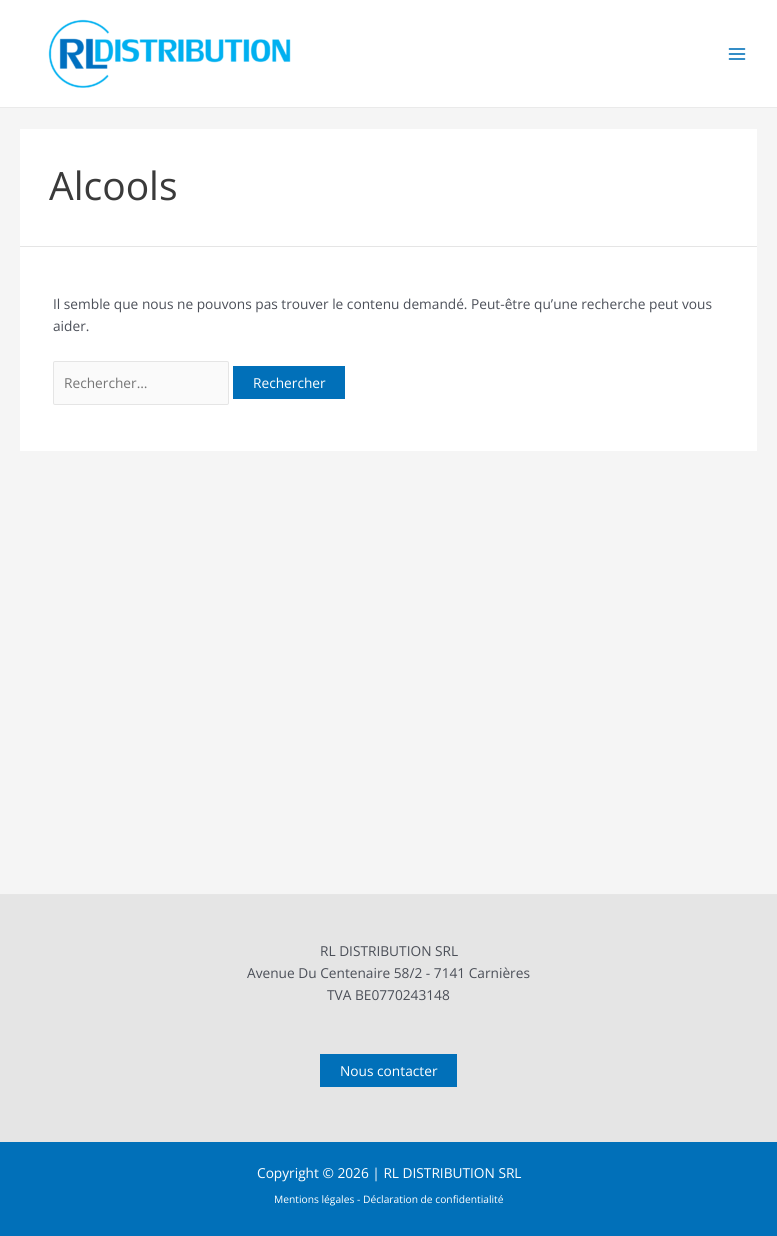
#include <cairo.h>
#include <math.h>
#include <stddef.h>

typedef struct { const char *family; double size; int italic, bold; unsigned color; } style_t;
static cairo_t *ctx;

static void ink(unsigned color) {
    cairo_set_source_rgb(ctx, (color >> 16) / 255.0, (color >> 8 & 255) / 255.0, (color & 255) / 255.0);
}

static void write(double x, double y, const char *s, const style_t *st) {
    cairo_select_font_face(ctx, st->family, st->italic ? CAIRO_FONT_SLANT_ITALIC : CAIRO_FONT_SLANT_NORMAL,
        st->bold ? CAIRO_FONT_WEIGHT_BOLD : CAIRO_FONT_WEIGHT_NORMAL);
    cairo_set_font_size(ctx, st->size);
    ink(st->color);
    cairo_move_to(ctx, x, y);
    cairo_show_text(ctx, s);
}

static void block(double x, double y, double w, double h, unsigned color) {
    ink(color);
    cairo_rectangle(ctx, x, y, w, h);
    cairo_fill(ctx);
}

static void round_path(double x, double y, double w, double h, double r) {
    cairo_new_sub_path(ctx);
    cairo_arc(ctx, x + w - r, y + h - r, r, 0, M_PI / 2);
    cairo_arc(ctx, x + r, y + h - r, r, M_PI / 2, M_PI);
    cairo_arc(ctx, x + r, y + r, r, M_PI, 1.5 * M_PI);
    cairo_arc(ctx, x + w - r, y + r, r, 1.5 * M_PI, 2 * M_PI);
    cairo_close_path(ctx);
}

static void paste(const char *path, double x, double y, double w, double h) {
    cairo_surface_t *image = cairo_image_surface_create_from_png(path);
    cairo_save(ctx);
    cairo_set_source_surface(ctx, image, x, y);
    cairo_rectangle(ctx, x, y, w, h);
    cairo_fill(ctx);
    cairo_restore(ctx);
    cairo_surface_destroy(image);
}

static const style_t s1 = {"Open Sans", 39, 0, 0, 0x3a3a3a};
static const style_t s2 = {"Open Sans", 13.7, 0, 0, 0x4b4f58};
static const style_t s3 = {"Open Sans", 13.7, 0, 0, 0x757575};
static const style_t s4 = {"Open Sans", 13.7, 0, 0, 0xffffff};
static const style_t s5 = {"Open Sans", 10.25, 0, 0, 0xffffff};

int main(void) {
    cairo_surface_t *surface = cairo_image_surface_create(CAIRO_FORMAT_RGB24, 777, 1236);
    ctx = cairo_create(surface);
    cairo_font_options_t *options = cairo_font_options_create();
    cairo_font_options_set_hint_metrics(options, CAIRO_HINT_METRICS_OFF);
    cairo_font_options_set_hint_style(options, CAIRO_HINT_STYLE_NONE);
    cairo_set_font_options(ctx, options);
    cairo_set_miter_limit(ctx, 4);
    ink(0xf5f5f5);
    cairo_paint(ctx);
    block(0, 0, 777, 107, 0xffffff);
    block(0, 107, 777, 1, 0xeaeaea);
    paste("pic1.png", 48, 19, 243, 69);
    paste("pic2.png", 728, 48, 18, 12);
    block(20, 129, 737, 117, 0xffffff);
    block(20, 246, 737, 1, 0xe5e5e5);
    write(49, 200, "Alcools", &s1);
    block(20, 247, 737, 204, 0xffffff);
    write(53, 309, "Il semble que nous ne pouvons pas trouver le contenu demandé. Peut-être qu’une recherche peut vous", &s2);
    write(53, 331, "aider.", &s2);
    ink(0xfafafa);
    round_path(53.5, 361.5, 175, 43, 1.5);
    cairo_fill_preserve(ctx);
    ink(0xe5e5e5);
    cairo_set_line_width(ctx, 1);
    cairo_stroke(ctx);
    write(64, 388, "Rechercher…", &s3);
    block(233, 366, 112, 33, 0x0170b9);
    write(253, 388, "Rechercher", &s4);
    block(0, 895, 777, 247, 0xe5e5e5);
    block(0, 894, 777, 1, 0xe6e6e6);
    write(320, 956, "RL DISTRIBUTION SRL", &s2);
    write(247, 978, "Avenue Du Centenaire 58/2 - 7141 Carnières", &s2);
    write(327, 1000, "TVA BE0770243148", &s2);
    block(320, 1054, 137, 33, 0x0170b9);
    write(340, 1076, "Nous contacter", &s4);
    block(0, 1142, 777, 94, 0x0170b9);
    write(257, 1178, "Copyright © 2026 | RL DISTRIBUTION SRL", &s4);
    write(274, 1203, "Mentions légales - Déclaration de confidentialité", &s5);
    cairo_surface_write_to_png(surface, "screenshot.png");
    cairo_font_options_destroy(options);
    cairo_destroy(ctx);
    cairo_surface_destroy(surface);
    return 0;
}
